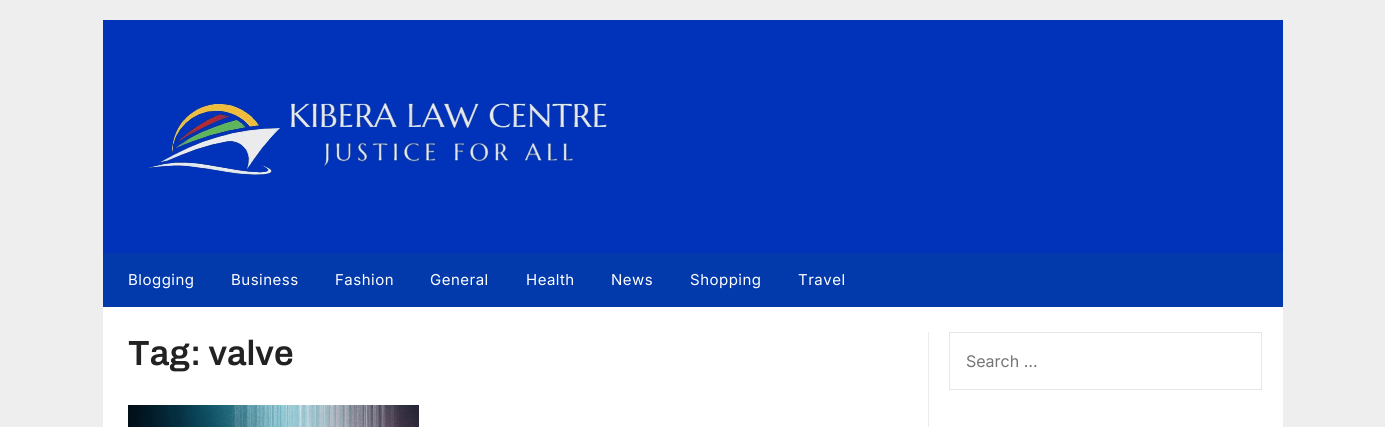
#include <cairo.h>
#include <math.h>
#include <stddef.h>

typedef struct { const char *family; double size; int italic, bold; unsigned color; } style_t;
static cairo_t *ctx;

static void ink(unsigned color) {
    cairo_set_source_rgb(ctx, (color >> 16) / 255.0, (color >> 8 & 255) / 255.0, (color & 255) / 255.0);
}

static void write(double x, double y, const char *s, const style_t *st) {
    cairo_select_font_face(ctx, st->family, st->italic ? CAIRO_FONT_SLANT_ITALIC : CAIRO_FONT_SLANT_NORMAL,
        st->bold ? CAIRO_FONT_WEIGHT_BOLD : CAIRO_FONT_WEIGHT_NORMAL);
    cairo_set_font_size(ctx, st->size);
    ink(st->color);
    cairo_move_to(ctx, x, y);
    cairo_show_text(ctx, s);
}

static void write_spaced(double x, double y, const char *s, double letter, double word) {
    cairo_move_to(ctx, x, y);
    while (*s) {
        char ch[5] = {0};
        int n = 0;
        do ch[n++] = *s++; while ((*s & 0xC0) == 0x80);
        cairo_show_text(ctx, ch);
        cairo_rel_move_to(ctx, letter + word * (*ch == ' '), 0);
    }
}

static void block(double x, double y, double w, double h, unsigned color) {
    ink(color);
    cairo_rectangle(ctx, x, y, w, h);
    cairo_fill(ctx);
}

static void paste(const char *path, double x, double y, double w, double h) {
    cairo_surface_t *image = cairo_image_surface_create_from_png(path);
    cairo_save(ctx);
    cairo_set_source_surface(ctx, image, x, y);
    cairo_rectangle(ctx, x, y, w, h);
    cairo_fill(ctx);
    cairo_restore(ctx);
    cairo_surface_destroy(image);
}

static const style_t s1 = {"Archivo SemiBold", 35, 0, 0, 0x222222};
static const style_t s2 = {"Inter", 16, 0, 0, 0x757575};

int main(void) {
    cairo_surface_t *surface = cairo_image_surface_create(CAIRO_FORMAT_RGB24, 1385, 427);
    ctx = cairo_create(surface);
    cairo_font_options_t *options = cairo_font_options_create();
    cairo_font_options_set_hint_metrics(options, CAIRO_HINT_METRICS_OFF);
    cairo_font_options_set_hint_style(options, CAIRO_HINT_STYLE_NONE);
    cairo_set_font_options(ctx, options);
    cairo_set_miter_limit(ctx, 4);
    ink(0xeeeeee);
    cairo_paint(ctx);
    block(103, 20, 1180, 233, 0x0133ba);
    paste("pic1.png", 148, 103, 459, 72);
    block(103, 253, 1180, 54, 0x0239ab);
    cairo_select_font_face(ctx, "Inter", CAIRO_FONT_SLANT_NORMAL, CAIRO_FONT_WEIGHT_NORMAL);
    cairo_set_font_size(ctx, 15);
    ink(0xffffff);
    write_spaced(128, 285, "Blogging", 0.5, 0);
    write_spaced(231, 285, "Business", 0.5, 0);
    write_spaced(335, 285, "Fashion", 0.5, 0);
    write_spaced(430, 285, "General", 0.5, 0);
    write_spaced(526, 285, "Health", 0.5, 0);
    write_spaced(611, 285, "News", 0.5, 0);
    write_spaced(690, 285, "Shopping", 0.5, 0);
    write_spaced(798, 285, "Travel", 0.5, 0);
    block(103, 307, 1180, 120, 0xffffff);
    write(128, 365, "Tag: valve", &s1);
    paste("pic2.png", 128, 405, 291, 22);
    block(928, 332, 1, 95, 0xececec);
    cairo_rectangle(ctx, 949.5, 332.5, 312, 57);
    ink(0xe5e6e9);
    cairo_set_line_width(ctx, 1);
    cairo_stroke(ctx);
    write(966, 367, "Search …", &s2);
    cairo_surface_write_to_png(surface, "screenshot.png");
    cairo_font_options_destroy(options);
    cairo_destroy(ctx);
    cairo_surface_destroy(surface);
    return 0;
}
